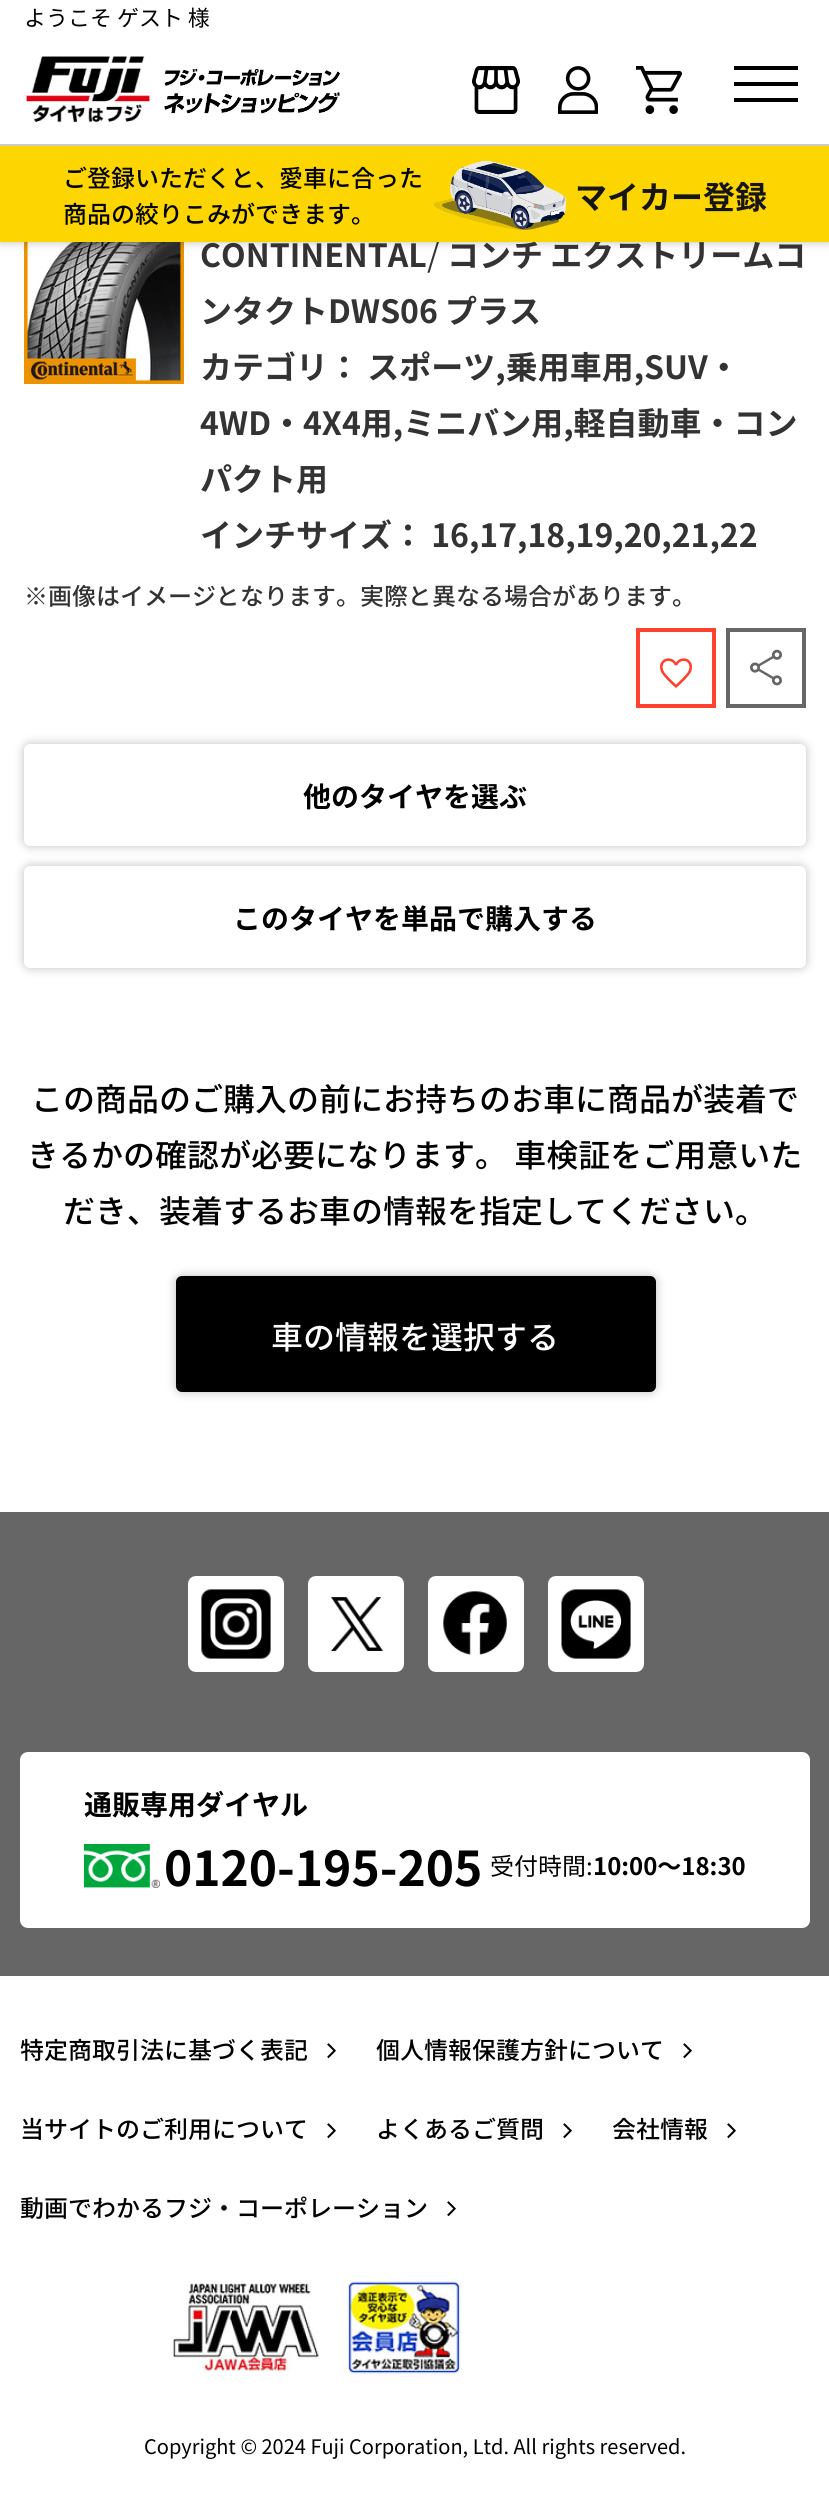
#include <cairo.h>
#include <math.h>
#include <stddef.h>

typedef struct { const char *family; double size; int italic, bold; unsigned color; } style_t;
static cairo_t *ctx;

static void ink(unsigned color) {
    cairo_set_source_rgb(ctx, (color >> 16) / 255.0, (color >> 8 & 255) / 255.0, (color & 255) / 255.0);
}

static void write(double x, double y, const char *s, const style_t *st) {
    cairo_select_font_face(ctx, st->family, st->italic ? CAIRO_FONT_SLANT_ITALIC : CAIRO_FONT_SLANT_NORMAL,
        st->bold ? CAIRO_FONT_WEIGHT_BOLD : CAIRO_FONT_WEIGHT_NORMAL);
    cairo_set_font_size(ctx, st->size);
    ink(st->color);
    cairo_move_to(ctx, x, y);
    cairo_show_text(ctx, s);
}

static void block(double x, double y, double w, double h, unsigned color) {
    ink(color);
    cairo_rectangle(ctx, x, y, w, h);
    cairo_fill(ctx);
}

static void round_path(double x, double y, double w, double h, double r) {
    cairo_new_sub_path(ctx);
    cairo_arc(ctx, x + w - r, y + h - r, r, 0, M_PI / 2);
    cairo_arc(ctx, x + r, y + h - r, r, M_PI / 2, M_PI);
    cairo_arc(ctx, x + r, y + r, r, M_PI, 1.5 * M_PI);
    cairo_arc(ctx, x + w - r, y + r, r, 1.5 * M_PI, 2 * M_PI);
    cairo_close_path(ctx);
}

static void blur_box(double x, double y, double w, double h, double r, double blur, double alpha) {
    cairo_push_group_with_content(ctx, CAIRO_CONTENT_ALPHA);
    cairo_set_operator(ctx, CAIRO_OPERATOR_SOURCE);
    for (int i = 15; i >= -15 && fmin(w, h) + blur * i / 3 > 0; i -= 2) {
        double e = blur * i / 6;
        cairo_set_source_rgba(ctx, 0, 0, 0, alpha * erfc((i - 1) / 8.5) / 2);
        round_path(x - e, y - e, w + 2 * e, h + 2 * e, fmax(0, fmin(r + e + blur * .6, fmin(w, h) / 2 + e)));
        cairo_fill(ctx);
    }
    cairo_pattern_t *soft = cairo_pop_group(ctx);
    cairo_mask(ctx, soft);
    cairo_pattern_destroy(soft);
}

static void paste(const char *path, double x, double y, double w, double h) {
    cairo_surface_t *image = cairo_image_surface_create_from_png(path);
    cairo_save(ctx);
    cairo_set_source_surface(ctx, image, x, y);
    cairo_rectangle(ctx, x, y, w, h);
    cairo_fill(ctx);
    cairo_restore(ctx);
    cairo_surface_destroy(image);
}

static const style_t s1 = {"Noto Sans CJK JP", 22, 0, 0, 0x000000};
static const style_t s2 = {"Noto Sans CJK JP", 32, 0, 0, 0x333333};
static const style_t s3 = {"Noto Sans CJK JP", 32, 0, 1, 0x333333};
static const style_t s4 = {"Noto Sans CJK JP Medium", 24, 0, 0, 0x000000};
static const style_t s5 = {"Noto Sans CJK JP", 32, 0, 1, 0x151515};
static const style_t s6 = {"Noto Sans CJK JP Medium", 24, 0, 0, 0x333333};
static const style_t s7 = {"Noto Sans CJK JP", 28, 0, 1, 0x000000};
static const style_t s8 = {"Noto Sans CJK JP Medium", 32, 0, 0, 0x000000};
static const style_t s9 = {"Noto Sans CJK JP Medium", 32, 0, 0, 0xffffff};
static const style_t s10 = {"Noto Sans CJK JP", 48, 0, 1, 0x000000};
static const style_t s11 = {"Noto Sans CJK JP", 24, 0, 0, 0x000000};
static const style_t s12 = {"Noto Sans CJK JP", 24, 0, 1, 0x000000};
static const style_t s13 = {"Noto Sans CJK JP", 20, 0, 0, 0x000000};

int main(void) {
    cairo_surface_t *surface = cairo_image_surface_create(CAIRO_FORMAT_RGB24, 829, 2506);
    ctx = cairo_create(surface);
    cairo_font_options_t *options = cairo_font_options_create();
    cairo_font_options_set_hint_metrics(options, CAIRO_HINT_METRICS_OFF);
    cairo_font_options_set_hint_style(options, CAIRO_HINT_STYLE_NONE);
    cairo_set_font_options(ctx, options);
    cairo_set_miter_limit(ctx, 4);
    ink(0xffffff);
    cairo_paint(ctx);
    paste("pic7.png", 24, 242, 160, 142);
    ink(0x000000);
    blur_box(0, 146, 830, 96, 0, 5, 0.25);
    block(0, 137, 829, 7, 0xffffff);
    block(0, 144, 829, 2, 0xcccccc);
    write(24, 26, "ようこそ ゲスト 様", &s1);
    paste("pic1.png", 24, 56, 127, 67);
    paste("pic2.png", 164, 68, 176, 46);
    paste("pic3.png", 472, 66, 48, 48);
    paste("pic4.png", 558, 66, 40, 48);
    paste("pic5.png", 636, 66, 46, 48);
    block(734, 66, 64, 4, 0x000000);
    block(734, 82, 64, 4, 0x000000);
    block(734, 98, 64, 4, 0x000000);
    write(427, 267, "/", &s2);
    write(447, 267, "コンチ エクストリームコ", &s3);
    block(0, 146, 829, 96, 0xfdd500);
    write(63, 187, "ご登録いただくと、愛車に合った", &s4);
    write(63, 223, "商品の絞りこみができます。", &s4);
    paste("pic6.png", 434, 160, 132, 70);
    write(575, 209, "マイカー登録", &s5);
    write(200, 267, "CONTINENTAL", &s3);
    write(200, 323, "ンタクトDWS06 プラス", &s3);
    write(200, 379, "カテゴリ： スポーツ,乗用車用,SUV・", &s3);
    write(200, 435, "4WD・4X4用,ミニバン用,軽自動車・コン", &s3);
    write(200, 491, "パクト用", &s3);
    write(200, 547, "インチサイズ： 16,17,18,19,20,21,22", &s3);
    write(24, 605, "※画像はイメージとなります。実際と異なる場合があります。", &s6);
    cairo_rectangle(ctx, 638, 630, 76, 76);
    ink(0xff422d);
    cairo_set_line_width(ctx, 4);
    cairo_stroke(ctx);
    paste("pic8.png", 660, 658, 32, 30);
    cairo_rectangle(ctx, 728, 630, 76, 76);
    ink(0x666666);
    cairo_stroke(ctx);
    paste("pic9.png", 750, 649, 32, 37);
    ink(0x000000);
    blur_box(24, 744, 782, 102, 6, 5, 0.25);
    ink(0xffffff);
    round_path(25, 745, 780, 100, 5);
    cairo_fill_preserve(ctx);
    cairo_set_line_width(ctx, 2);
    cairo_stroke(ctx);
    write(303, 807, "他のタイヤを選ぶ", &s7);
    ink(0x000000);
    blur_box(24, 866, 782, 102, 6, 5, 0.25);
    ink(0xffffff);
    round_path(25, 867, 780, 100, 5);
    cairo_fill_preserve(ctx);
    cairo_stroke(ctx);
    write(233, 929, "このタイヤを単品で購入する", &s7);
    write(31, 1111, "この商品のご購入の前にお持ちのお車に商品が装着で", &s8);
    write(27, 1167, "きるかの確認が必要になります。 車検証をご用意いた", &s8);
    write(63, 1223, "だき、装着するお車の情報を指定してください。", &s8);
    ink(0x000000);
    blur_box(176, 1276, 480, 116, 6, 5, 0.25);
    ink(0x000000);
    round_path(177, 1277, 478, 114, 5);
    cairo_fill_preserve(ctx);
    cairo_stroke(ctx);
    write(271, 1349, "車の情報を選択する", &s9);
    block(0, 1512, 829, 464, 0x666666);
    paste("pic10.png", 188, 1576, 96, 96);
    paste("pic11.png", 308, 1576, 96, 96);
    paste("pic12.png", 428, 1576, 96, 96);
    paste("pic13.png", 548, 1576, 96, 96);
    ink(0xffffff);
    round_path(20, 1752, 790, 176, 8);
    cairo_fill(ctx);
    write(84, 1815, "通販専用ダイヤル", &s7);
    paste("pic14.png", 84, 1844, 76, 44);
    write(164, 1886, "0120-195-205", &s10);
    write(490, 1875, "受付時間:", &s11);
    write(593, 1875, "10:00～18:30", &s12);
    write(20, 2059, "特定商取引法に基づく表記", &s4);
    paste("pic15.png", 327, 2043, 9, 16);
    write(376, 2059, "個人情報保護方針について", &s4);
    paste("pic15.png", 683, 2043, 9, 16);
    write(20, 2138, "当サイトのご利用について", &s4);
    paste("pic15.png", 327, 2123, 9, 16);
    write(376, 2138, "よくあるご質問", &s4);
    paste("pic15.png", 563, 2123, 9, 16);
    write(612, 2138, "会社情報", &s4);
    paste("pic15.png", 727, 2123, 9, 16);
    write(20, 2217, "動画でわかるフジ・コーポレーション", &s4);
    paste("pic15.png", 447, 2201, 9, 16);
    paste("pic16.png", 170, 2282, 149, 94);
    paste("pic17.png", 342, 2278, 120, 96);
    write(144, 2454, "Copyright © 2024 Fuji Corporation, Ltd. All rights reserved.", &s13);
    cairo_surface_write_to_png(surface, "screenshot.png");
    cairo_font_options_destroy(options);
    cairo_destroy(ctx);
    cairo_surface_destroy(surface);
    return 0;
}
